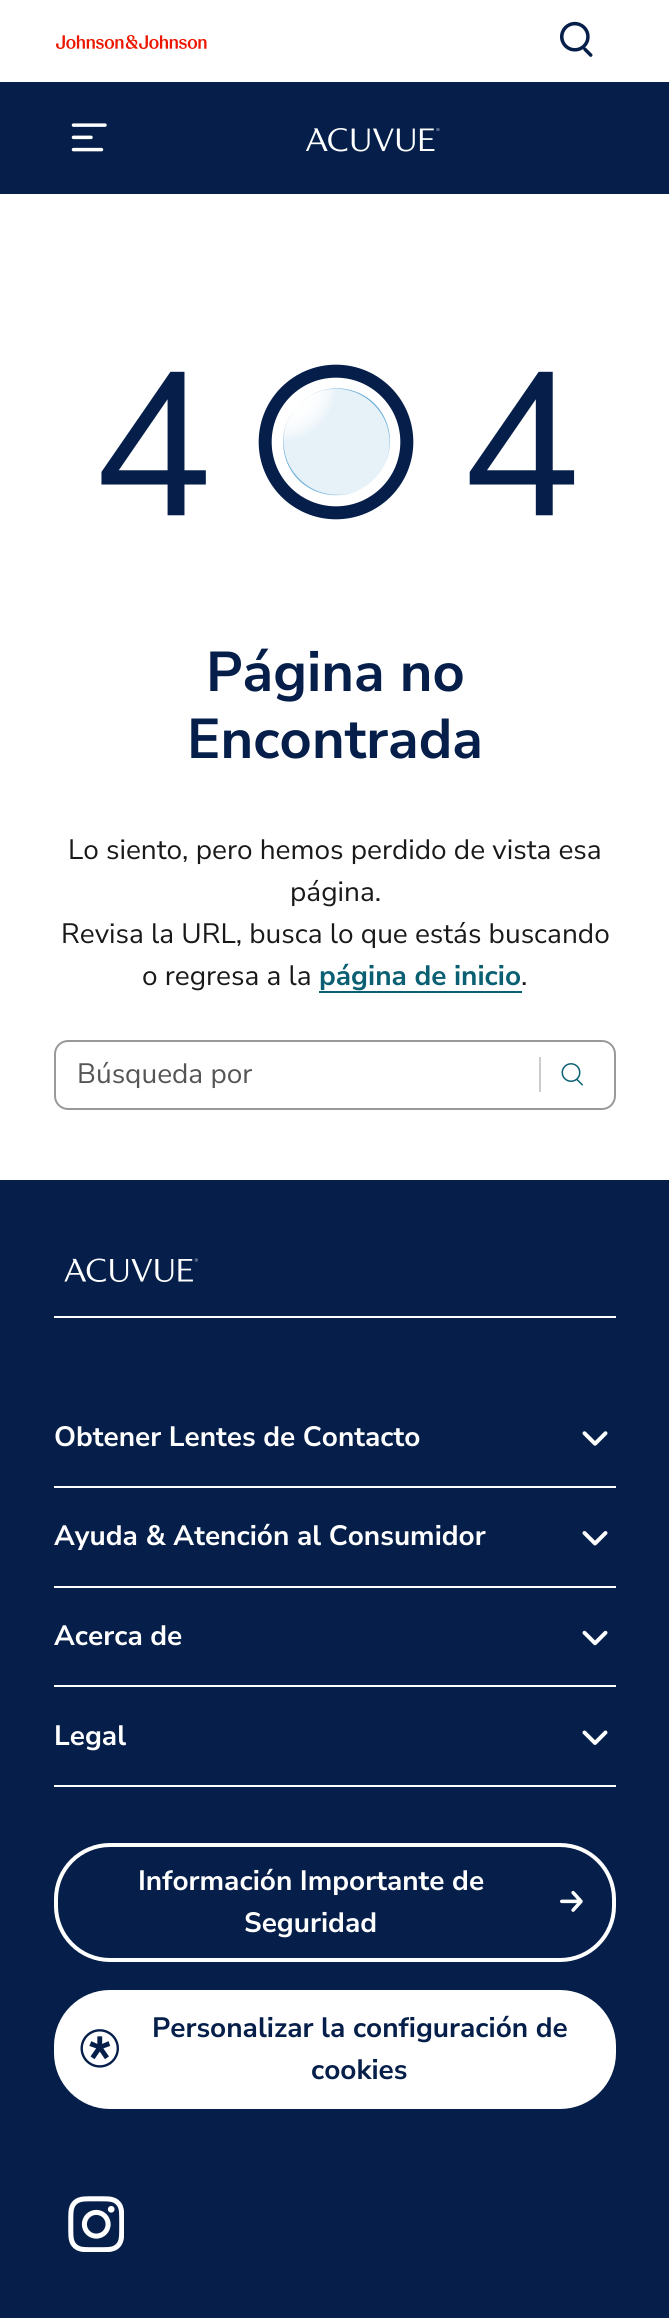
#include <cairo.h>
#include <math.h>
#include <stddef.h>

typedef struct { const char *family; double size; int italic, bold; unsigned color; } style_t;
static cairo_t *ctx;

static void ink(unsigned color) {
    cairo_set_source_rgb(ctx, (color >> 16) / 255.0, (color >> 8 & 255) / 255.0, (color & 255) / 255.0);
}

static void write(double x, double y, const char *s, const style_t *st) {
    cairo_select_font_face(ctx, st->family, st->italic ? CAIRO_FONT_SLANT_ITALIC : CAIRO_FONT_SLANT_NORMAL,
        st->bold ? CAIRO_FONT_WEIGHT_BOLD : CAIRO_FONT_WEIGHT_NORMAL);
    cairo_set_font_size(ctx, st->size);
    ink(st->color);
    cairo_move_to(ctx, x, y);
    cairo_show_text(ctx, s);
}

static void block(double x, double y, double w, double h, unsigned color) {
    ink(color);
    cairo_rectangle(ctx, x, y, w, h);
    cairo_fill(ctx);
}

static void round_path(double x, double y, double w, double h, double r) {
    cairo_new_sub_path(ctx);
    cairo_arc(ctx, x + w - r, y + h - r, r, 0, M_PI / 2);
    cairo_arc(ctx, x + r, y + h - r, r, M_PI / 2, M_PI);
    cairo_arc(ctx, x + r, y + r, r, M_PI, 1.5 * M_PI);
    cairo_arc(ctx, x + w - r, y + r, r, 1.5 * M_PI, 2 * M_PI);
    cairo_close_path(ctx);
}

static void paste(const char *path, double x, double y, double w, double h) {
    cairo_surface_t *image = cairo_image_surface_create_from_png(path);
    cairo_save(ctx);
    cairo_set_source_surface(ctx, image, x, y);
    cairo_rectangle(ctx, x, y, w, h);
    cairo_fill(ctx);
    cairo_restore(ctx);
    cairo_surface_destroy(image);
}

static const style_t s1 = {"Nunito Sans", 56, 0, 1, 0x051f4a};
static const style_t s2 = {"Nunito Sans", 28, 0, 0, 0x191919};
static const style_t s3 = {"Nunito Sans", 28, 0, 1, 0x0a5f72};
static const style_t s4 = {"Nunito Sans", 28, 0, 0, 0x555555};
static const style_t s5 = {"Nunito Sans", 28, 0, 1, 0xffffff};
static const style_t s6 = {"Nunito Sans", 28, 0, 1, 0x051f4a};

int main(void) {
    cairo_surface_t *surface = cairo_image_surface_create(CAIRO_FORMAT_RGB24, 669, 2318);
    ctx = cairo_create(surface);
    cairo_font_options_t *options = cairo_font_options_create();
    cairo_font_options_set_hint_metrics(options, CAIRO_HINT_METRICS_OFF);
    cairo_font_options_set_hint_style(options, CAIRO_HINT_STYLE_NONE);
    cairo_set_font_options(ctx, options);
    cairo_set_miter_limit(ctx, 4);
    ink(0xffffff);
    cairo_paint(ctx);
    paste("pic1.png", 56, 35, 151, 14);
    paste("pic2.png", 560, 21, 33, 36);
    block(0, 82, 669, 112, 0x051f4a);
    paste("pic3.png", 71, 123, 36, 29);
    paste("pic4.png", 306, 128, 134, 24);
    paste("pic5.png", 101, 364, 474, 156);
    write(206, 691, "Página no", &s1);
    write(187, 758, "Encontrada", &s1);
    write(68, 859, "Lo siento, pero hemos perdido de vista esa", &s2);
    write(290, 901, "página.", &s2);
    write(61, 943, "Revisa la URL, busca lo que estás buscando", &s2);
    write(142, 985, "o regresa a la", &s2);
    write(319, 985, "página de inicio", &s3);
    block(319, 991, 203, 2, 0x0a5f72);
    write(521, 985, ".", &s2);
    round_path(55, 1041, 560, 68, 13);
    ink(0x999999);
    cairo_stroke(ctx);
    write(77, 1083, "Búsqueda por", &s4);
    block(539, 1057, 2, 35, 0xcccccc);
    paste("pic6.png", 561, 1063, 22, 23);
    block(0, 1180, 669, 1138, 0x051f4a);
    block(54, 1316, 562, 2, 0xffffff);
    paste("pic7.png", 64, 1258, 135, 24);
    block(54, 1486, 562, 2, 0xffffff);
    write(54, 1446, "Obtener Lentes de Contacto", &s5);
    paste("pic8.png", 582, 1431, 26, 15);
    block(54, 1586, 562, 2, 0xffffff);
    write(54, 1545, "Ayuda & Atención al Consumidor", &s5);
    paste("pic9.png", 582, 1531, 26, 15);
    block(54, 1685, 562, 2, 0xffffff);
    write(54, 1645, "Acerca de", &s5);
    paste("pic10.png", 582, 1630, 26, 16);
    block(54, 1785, 562, 2, 0xffffff);
    write(54, 1745, "Legal", &s5);
    paste("pic11.png", 582, 1730, 26, 15);
    round_path(56, 1845, 558, 115, 54);
    cairo_set_line_width(ctx, 4);
    cairo_stroke(ctx);
    write(138, 1890, "Información Importante de", &s5);
    write(244, 1932, "Seguridad", &s5);
    paste("pic12.png", 560, 1890, 23, 22);
    round_path(56, 1992, 558, 115, 54);
    cairo_fill_preserve(ctx);
    cairo_stroke(ctx);
    paste("pic13.png", 80, 2029, 39, 39);
    write(152, 2037, "Personalizar la configuración de", &s6);
    write(311, 2079, "cookies", &s6);
    paste("pic14.png", 68, 2196, 56, 56);
    cairo_surface_write_to_png(surface, "screenshot.png");
    cairo_font_options_destroy(options);
    cairo_destroy(ctx);
    cairo_surface_destroy(surface);
    return 0;
}
